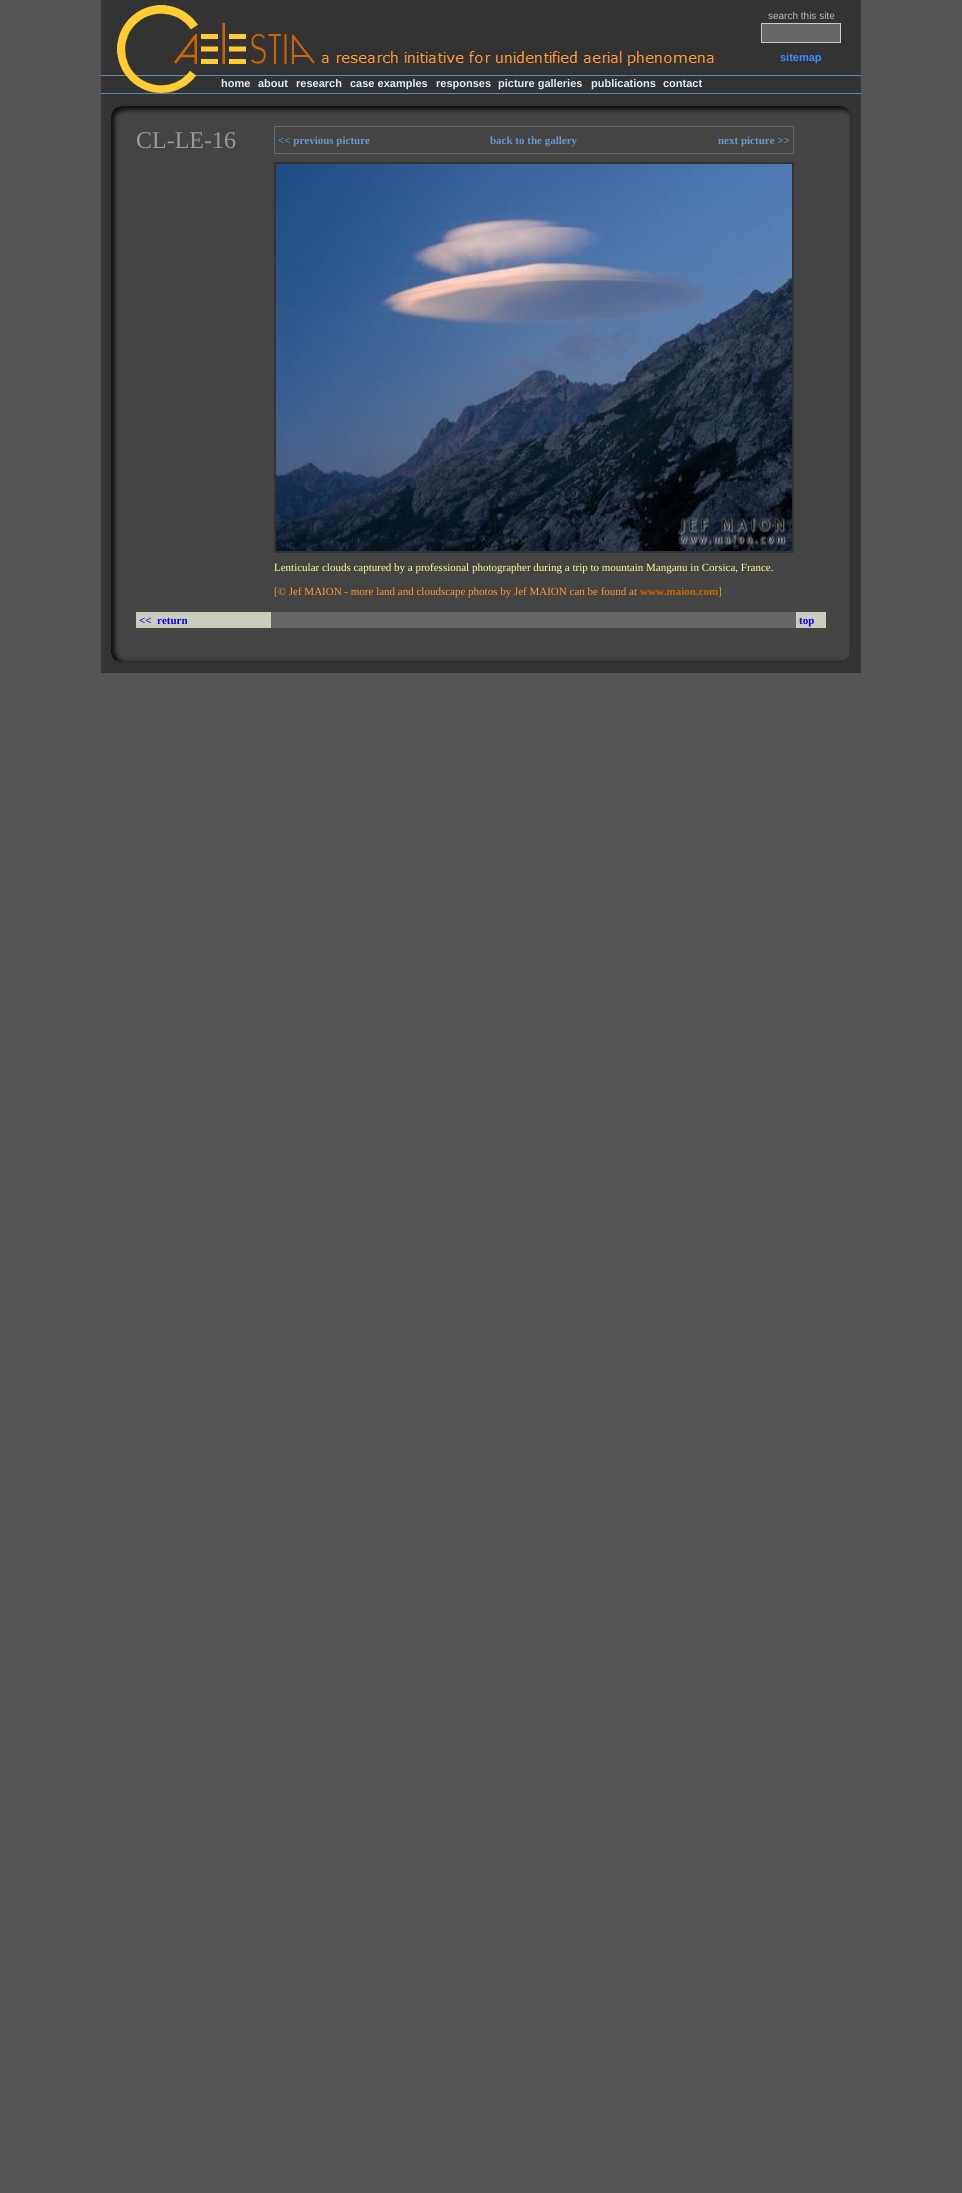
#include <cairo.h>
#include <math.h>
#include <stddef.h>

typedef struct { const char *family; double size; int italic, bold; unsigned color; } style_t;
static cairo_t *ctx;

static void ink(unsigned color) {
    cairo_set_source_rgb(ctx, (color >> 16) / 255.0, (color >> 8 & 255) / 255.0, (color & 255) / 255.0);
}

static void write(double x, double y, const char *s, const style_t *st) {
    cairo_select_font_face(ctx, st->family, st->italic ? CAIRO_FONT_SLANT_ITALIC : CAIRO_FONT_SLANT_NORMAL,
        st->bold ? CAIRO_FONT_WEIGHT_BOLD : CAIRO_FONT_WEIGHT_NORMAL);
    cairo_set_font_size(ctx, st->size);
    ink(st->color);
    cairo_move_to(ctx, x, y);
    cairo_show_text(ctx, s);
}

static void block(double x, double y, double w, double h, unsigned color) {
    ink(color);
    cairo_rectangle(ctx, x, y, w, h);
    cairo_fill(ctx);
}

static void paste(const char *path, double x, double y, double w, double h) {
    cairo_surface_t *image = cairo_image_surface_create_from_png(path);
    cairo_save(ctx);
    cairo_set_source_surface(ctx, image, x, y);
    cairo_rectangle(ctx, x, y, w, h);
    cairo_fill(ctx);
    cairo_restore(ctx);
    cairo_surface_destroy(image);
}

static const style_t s1 = {"Liberation Sans", 10, 0, 0, 0xbbbbbb};
static const style_t s2 = {"Liberation Sans", 11, 0, 1, 0x4488ff};
static const style_t s3 = {"Liberation Sans", 11, 0, 1, 0xddeeff};
static const style_t s4 = {"Liberation Serif", 24, 0, 0, 0x999999};
static const style_t s5 = {"Liberation Serif", 11, 0, 1, 0x6699cc};
static const style_t s6 = {"Liberation Serif", 11, 0, 0, 0xffff99};
static const style_t s7 = {"Liberation Serif", 11, 0, 0, 0xff9933};
static const style_t s8 = {"Liberation Serif", 11, 0, 1, 0xcc6600};
static const style_t s9 = {"Liberation Serif", 11, 0, 1, 0x0000ff};

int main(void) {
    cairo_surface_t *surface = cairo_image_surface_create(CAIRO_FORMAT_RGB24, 962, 2193);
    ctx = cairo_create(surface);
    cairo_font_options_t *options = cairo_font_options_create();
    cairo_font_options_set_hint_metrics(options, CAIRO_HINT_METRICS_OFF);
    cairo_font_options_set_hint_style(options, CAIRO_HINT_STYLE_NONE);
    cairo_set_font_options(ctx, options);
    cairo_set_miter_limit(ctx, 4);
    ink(0x555555);
    cairo_paint(ctx);
    block(101, 0, 760, 96, 0x333333);
    paste("pic1.png", 101, 5, 760, 89);
    write(768, 19, "search this site", &s1);
    ink(0x666666);
    cairo_rectangle(ctx, 761.5, 23.5, 79, 19);
    cairo_fill_preserve(ctx);
    ink(0xcccccc);
    cairo_set_line_width(ctx, 1);
    cairo_stroke(ctx);
    write(780, 61, "sitemap", &s2);
    write(221, 87, "home", &s3);
    write(258, 87, "about", &s3);
    write(296, 87, "research", &s3);
    write(350, 87, "case examples", &s3);
    write(436, 87, "responses", &s3);
    write(498, 87, "picture galleries", &s3);
    write(591, 87, "publications", &s3);
    write(663, 87, "contact", &s3);
    paste("pic2.png", 101, 96, 760, 25);
    paste("pic3.png", 101, 121, 20, 532);
    block(121, 121, 720, 532, 0x444444);
    write(136, 148, "CL-LE-16", &s4);
    block(274, 126, 520, 1, 0x666666);
    block(793, 126, 1, 28, 0x666666);
    block(274, 153, 520, 1, 0x666666);
    block(274, 126, 1, 28, 0x666666);
    write(278, 144, "<< previous picture", &s5);
    write(490, 144, "back to the gallery", &s5);
    write(718, 144, "next picture >>", &s5);
    cairo_rectangle(ctx, 275, 163, 518, 389);
    ink(0x333333);
    cairo_set_line_width(ctx, 2);
    cairo_stroke(ctx);
    paste("pic4.png", 276, 164, 516, 387);
    write(274, 571, "Lenticular clouds captured by a professional photographer during a trip to mountain Manganu in Corsica, France.", &s6);
    write(274, 595, "[© Jef MAION - more land and cloudscape photos by Jef MAION can be found at", &s7);
    write(640, 595, "www.maion.com", &s8);
    write(718, 595, "]", &s7);
    block(136, 612, 690, 16, 0xccccbb);
    write(139, 624, "<<  return", &s9);
    block(271, 612, 525, 16, 0x666666);
    write(799, 624, "top", &s9);
    paste("pic5.png", 841, 121, 20, 532);
    paste("pic6.png", 101, 653, 760, 20);
    cairo_surface_write_to_png(surface, "screenshot.png");
    cairo_font_options_destroy(options);
    cairo_destroy(ctx);
    cairo_surface_destroy(surface);
    return 0;
}
